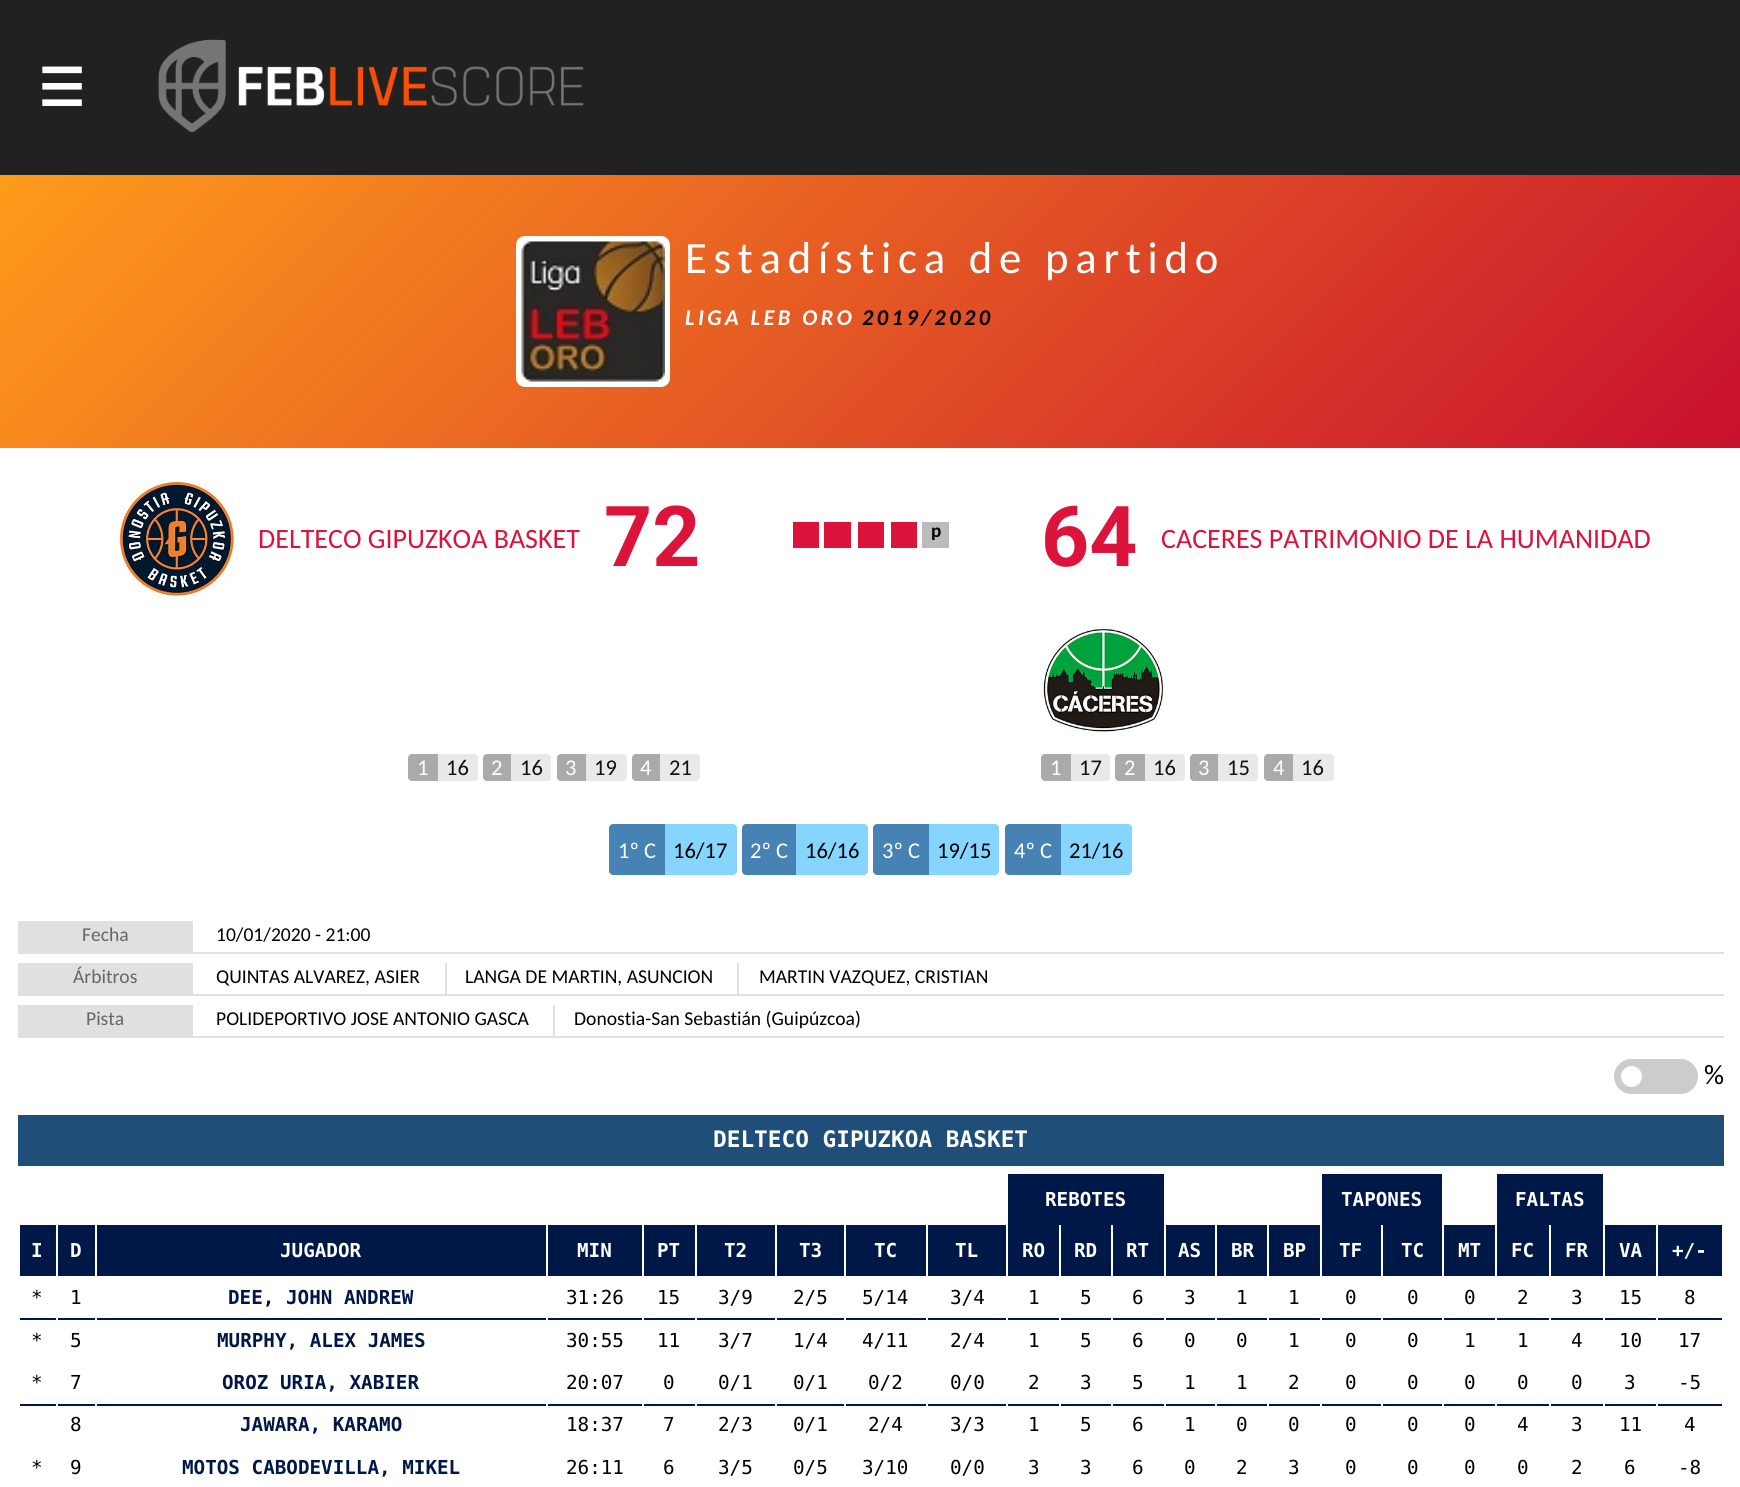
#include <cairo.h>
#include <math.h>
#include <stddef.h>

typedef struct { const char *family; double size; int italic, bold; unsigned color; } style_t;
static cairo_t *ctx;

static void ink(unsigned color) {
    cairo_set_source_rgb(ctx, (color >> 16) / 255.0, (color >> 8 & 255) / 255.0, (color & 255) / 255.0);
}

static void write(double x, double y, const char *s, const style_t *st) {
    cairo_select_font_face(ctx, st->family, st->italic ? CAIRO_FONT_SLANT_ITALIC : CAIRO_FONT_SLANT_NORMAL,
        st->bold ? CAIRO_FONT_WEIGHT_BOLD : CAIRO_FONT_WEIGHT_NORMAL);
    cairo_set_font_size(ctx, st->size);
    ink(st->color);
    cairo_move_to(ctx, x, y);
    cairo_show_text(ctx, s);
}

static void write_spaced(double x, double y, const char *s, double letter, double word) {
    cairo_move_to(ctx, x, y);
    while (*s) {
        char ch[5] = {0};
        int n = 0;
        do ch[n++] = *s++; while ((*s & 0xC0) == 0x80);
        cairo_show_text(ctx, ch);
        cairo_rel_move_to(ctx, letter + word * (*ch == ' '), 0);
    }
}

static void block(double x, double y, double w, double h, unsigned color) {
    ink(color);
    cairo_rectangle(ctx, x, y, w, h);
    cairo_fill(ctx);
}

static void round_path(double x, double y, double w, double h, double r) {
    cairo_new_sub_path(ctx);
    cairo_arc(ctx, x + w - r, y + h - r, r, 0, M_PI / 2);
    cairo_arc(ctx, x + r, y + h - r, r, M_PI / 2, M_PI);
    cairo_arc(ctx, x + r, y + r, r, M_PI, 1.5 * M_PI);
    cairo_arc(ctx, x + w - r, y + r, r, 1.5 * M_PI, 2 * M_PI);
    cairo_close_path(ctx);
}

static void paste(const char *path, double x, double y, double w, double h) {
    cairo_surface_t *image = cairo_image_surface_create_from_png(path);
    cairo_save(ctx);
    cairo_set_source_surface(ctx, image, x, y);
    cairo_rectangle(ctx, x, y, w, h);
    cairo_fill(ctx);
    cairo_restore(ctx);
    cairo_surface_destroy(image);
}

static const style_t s1 = {"DejaVu Sans", 52, 0, 1, 0xffffff};
static const style_t s2 = {"Carlito", 28, 0, 0, 0xdc143c};
static const style_t s3 = {"Roboto", 84, 0, 1, 0xdc143c};
static const style_t s4 = {"Carlito", 19.25, 0, 1, 0x000000};
static const style_t s5 = {"Carlito", 22.5, 0, 0, 0xffffff};
static const style_t s6 = {"Carlito", 22.5, 0, 0, 0x111111};
static const style_t s7 = {"Carlito", 22.5, 0, 0, 0x000000};
static const style_t s8 = {"Carlito", 19.6, 0, 0, 0x666666};
static const style_t s9 = {"Carlito", 19.6, 0, 0, 0x000000};
static const style_t s10 = {"Carlito", 28, 0, 0, 0x000000};
static const style_t s11 = {"DejaVu Sans Mono", 22.75, 0, 1, 0xffffff};
static const style_t s12 = {"DejaVu Sans Mono", 19.25, 0, 1, 0xffffff};
static const style_t s13 = {"DejaVu Sans Mono", 19.25, 0, 0, 0x000000};
static const style_t s14 = {"DejaVu Sans Mono", 19.25, 0, 1, 0x001848};

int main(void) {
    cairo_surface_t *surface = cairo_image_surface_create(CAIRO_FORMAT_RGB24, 1740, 1487);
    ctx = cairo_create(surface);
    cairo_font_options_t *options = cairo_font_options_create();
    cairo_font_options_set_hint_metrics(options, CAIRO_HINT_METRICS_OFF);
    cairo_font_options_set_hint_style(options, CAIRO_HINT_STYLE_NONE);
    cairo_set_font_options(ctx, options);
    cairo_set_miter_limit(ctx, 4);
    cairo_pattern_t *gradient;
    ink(0x212121);
    cairo_paint(ctx);
    write(38, 106, "☰", &s1);
    paste("pic1.png", 158, 39, 426, 94);
    block(0, 448, 1740, 1039, 0xffffff);
    gradient = cairo_pattern_create_linear(367, -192, 1374, 815);
    cairo_pattern_add_color_stop_rgba(gradient, 0, 1, 0.612, 0.106, 1);
    cairo_pattern_add_color_stop_rgba(gradient, 1, 0.784, 0.063, 0.18, 1);
    cairo_set_source(ctx, gradient);
    cairo_pattern_destroy(gradient);
    cairo_rectangle(ctx, 0, 175, 1740, 273);
    cairo_fill(ctx);
    ink(0xffffff);
    round_path(516, 236, 154, 151, 9);
    cairo_fill(ctx);
    paste("pic2.png", 521, 241, 144, 141);
    cairo_select_font_face(ctx, "Carlito", CAIRO_FONT_SLANT_NORMAL, CAIRO_FONT_WEIGHT_NORMAL);
    cairo_set_font_size(ctx, 44.75);
    write_spaced(685, 273, "Estadística de partido", 6.75, 0);
    cairo_select_font_face(ctx, "Carlito", CAIRO_FONT_SLANT_ITALIC, CAIRO_FONT_WEIGHT_BOLD);
    cairo_set_font_size(ctx, 22.5);
    write_spaced(685, 325, "LIGA LEB ORO", 3.4, 0);
    ink(0x000000);
    write_spaced(862, 325, "2019/2020", 3.4, 0);
    paste("pic3.png", 119, 477, 116, 122);
    write(258, 548, "DELTECO GIPUZKOA BASKET", &s2);
    write(604, 566, "72", &s3);
    block(793, 522, 26, 26, 0xdc143c);
    block(824, 522, 27, 26, 0xdc143c);
    block(858, 522, 26, 26, 0xdc143c);
    block(891, 522, 26, 26, 0xdc143c);
    block(922, 522, 27, 26, 0xbbbbbb);
    write(931, 537, "p", &s4);
    write(1041, 566, "64", &s3);
    write(1161, 548, "CACERES PATRIMONIO DE LA HUMANIDAD", &s2);
    paste("pic4.png", 1043, 628, 122, 104);
    ink(0xe9e9e9);
    round_path(408, 754, 70, 27, 4);
    cairo_fill(ctx);
    ink(0xaaaaaa);
    cairo_new_path(ctx);
    cairo_move_to(ctx, 412, 754);
    cairo_line_to(ctx, 438, 754);
    cairo_line_to(ctx, 438, 781);
    cairo_line_to(ctx, 412, 781);
    cairo_curve_to(ctx, 410, 781, 408, 779, 408, 777);
    cairo_line_to(ctx, 408, 758);
    cairo_curve_to(ctx, 408, 756, 410, 754, 412, 754);
    cairo_close_path(ctx);
    cairo_fill(ctx);
    write(417, 775, "1", &s5);
    write(446, 775, "16", &s6);
    ink(0xe9e9e9);
    round_path(483, 754, 68, 27, 4);
    cairo_fill(ctx);
    ink(0xaaaaaa);
    cairo_new_path(ctx);
    cairo_move_to(ctx, 487, 754);
    cairo_line_to(ctx, 511, 754);
    cairo_line_to(ctx, 511, 781);
    cairo_line_to(ctx, 487, 781);
    cairo_curve_to(ctx, 485, 781, 483, 779, 483, 777);
    cairo_line_to(ctx, 483, 758);
    cairo_curve_to(ctx, 483, 756, 485, 754, 487, 754);
    cairo_close_path(ctx);
    cairo_fill(ctx);
    write(491, 775, "2", &s5);
    write(520, 775, "16", &s6);
    ink(0xe9e9e9);
    round_path(557, 754, 70, 27, 4);
    cairo_fill(ctx);
    ink(0xaaaaaa);
    cairo_new_path(ctx);
    cairo_move_to(ctx, 561, 754);
    cairo_line_to(ctx, 586, 754);
    cairo_line_to(ctx, 586, 781);
    cairo_line_to(ctx, 561, 781);
    cairo_curve_to(ctx, 559, 781, 557, 779, 557, 777);
    cairo_line_to(ctx, 557, 758);
    cairo_curve_to(ctx, 557, 756, 559, 754, 561, 754);
    cairo_close_path(ctx);
    cairo_fill(ctx);
    write(565, 775, "3", &s5);
    write(594, 775, "19", &s6);
    ink(0xe9e9e9);
    round_path(632, 754, 68, 27, 4);
    cairo_fill(ctx);
    ink(0xaaaaaa);
    cairo_new_path(ctx);
    cairo_move_to(ctx, 636, 754);
    cairo_line_to(ctx, 660, 754);
    cairo_line_to(ctx, 660, 781);
    cairo_line_to(ctx, 636, 781);
    cairo_curve_to(ctx, 634, 781, 632, 779, 632, 777);
    cairo_line_to(ctx, 632, 758);
    cairo_curve_to(ctx, 632, 756, 634, 754, 636, 754);
    cairo_close_path(ctx);
    cairo_fill(ctx);
    write(640, 775, "4", &s5);
    write(669, 775, "21", &s6);
    ink(0xe9e9e9);
    round_path(1041, 754, 69, 27, 4);
    cairo_fill(ctx);
    ink(0xaaaaaa);
    cairo_new_path(ctx);
    cairo_move_to(ctx, 1045, 754);
    cairo_line_to(ctx, 1071, 754);
    cairo_line_to(ctx, 1071, 781);
    cairo_line_to(ctx, 1045, 781);
    cairo_curve_to(ctx, 1043, 781, 1041, 779, 1041, 777);
    cairo_line_to(ctx, 1041, 758);
    cairo_curve_to(ctx, 1041, 756, 1043, 754, 1045, 754);
    cairo_close_path(ctx);
    cairo_fill(ctx);
    write(1050, 775, "1", &s5);
    write(1079, 775, "17", &s6);
    ink(0xe9e9e9);
    round_path(1115, 754, 70, 27, 4);
    cairo_fill(ctx);
    ink(0xaaaaaa);
    cairo_new_path(ctx);
    cairo_move_to(ctx, 1119, 754);
    cairo_line_to(ctx, 1145, 754);
    cairo_line_to(ctx, 1145, 781);
    cairo_line_to(ctx, 1119, 781);
    cairo_curve_to(ctx, 1117, 781, 1115, 779, 1115, 777);
    cairo_line_to(ctx, 1115, 758);
    cairo_curve_to(ctx, 1115, 756, 1117, 754, 1119, 754);
    cairo_close_path(ctx);
    cairo_fill(ctx);
    write(1124, 775, "2", &s5);
    write(1153, 775, "16", &s6);
    ink(0xe9e9e9);
    round_path(1190, 754, 68, 27, 4);
    cairo_fill(ctx);
    ink(0xaaaaaa);
    cairo_new_path(ctx);
    cairo_move_to(ctx, 1194, 754);
    cairo_line_to(ctx, 1218, 754);
    cairo_line_to(ctx, 1218, 781);
    cairo_line_to(ctx, 1194, 781);
    cairo_curve_to(ctx, 1192, 781, 1190, 779, 1190, 777);
    cairo_line_to(ctx, 1190, 758);
    cairo_curve_to(ctx, 1190, 756, 1192, 754, 1194, 754);
    cairo_close_path(ctx);
    cairo_fill(ctx);
    write(1198, 775, "3", &s5);
    write(1227, 775, "15", &s6);
    ink(0xe9e9e9);
    round_path(1264, 754, 70, 27, 4);
    cairo_fill(ctx);
    ink(0xaaaaaa);
    cairo_new_path(ctx);
    cairo_move_to(ctx, 1268, 754);
    cairo_line_to(ctx, 1293, 754);
    cairo_line_to(ctx, 1293, 781);
    cairo_line_to(ctx, 1268, 781);
    cairo_curve_to(ctx, 1266, 781, 1264, 779, 1264, 777);
    cairo_line_to(ctx, 1264, 758);
    cairo_curve_to(ctx, 1264, 756, 1266, 754, 1268, 754);
    cairo_close_path(ctx);
    cairo_fill(ctx);
    write(1273, 775, "4", &s5);
    write(1301, 775, "16", &s6);
    ink(0x4682b4);
    cairo_new_path(ctx);
    cairo_move_to(ctx, 613, 824);
    cairo_line_to(ctx, 665, 824);
    cairo_line_to(ctx, 665, 875);
    cairo_line_to(ctx, 613, 875);
    cairo_curve_to(ctx, 611, 875, 609, 873, 609, 871);
    cairo_line_to(ctx, 609, 828);
    cairo_curve_to(ctx, 609, 826, 611, 824, 613, 824);
    cairo_close_path(ctx);
    cairo_fill(ctx);
    write(618, 858, "1º C", &s5);
    ink(0x85d5ff);
    cairo_new_path(ctx);
    cairo_move_to(ctx, 665, 824);
    cairo_line_to(ctx, 733, 824);
    cairo_curve_to(ctx, 735, 824, 737, 826, 737, 828);
    cairo_line_to(ctx, 737, 871);
    cairo_curve_to(ctx, 737, 873, 735, 875, 733, 875);
    cairo_line_to(ctx, 665, 875);
    cairo_close_path(ctx);
    cairo_fill(ctx);
    write(673, 858, "16/17", &s7);
    ink(0x4682b4);
    cairo_new_path(ctx);
    cairo_move_to(ctx, 746, 824);
    cairo_line_to(ctx, 796, 824);
    cairo_line_to(ctx, 796, 875);
    cairo_line_to(ctx, 746, 875);
    cairo_curve_to(ctx, 744, 875, 742, 873, 742, 871);
    cairo_line_to(ctx, 742, 828);
    cairo_curve_to(ctx, 742, 826, 744, 824, 746, 824);
    cairo_close_path(ctx);
    cairo_fill(ctx);
    write(750, 858, "2º C", &s5);
    ink(0x85d5ff);
    cairo_new_path(ctx);
    cairo_move_to(ctx, 796, 824);
    cairo_line_to(ctx, 864, 824);
    cairo_curve_to(ctx, 866, 824, 868, 826, 868, 828);
    cairo_line_to(ctx, 868, 871);
    cairo_curve_to(ctx, 868, 873, 866, 875, 864, 875);
    cairo_line_to(ctx, 796, 875);
    cairo_close_path(ctx);
    cairo_fill(ctx);
    write(805, 858, "16/16", &s7);
    ink(0x4682b4);
    cairo_new_path(ctx);
    cairo_move_to(ctx, 877, 824);
    cairo_line_to(ctx, 929, 824);
    cairo_line_to(ctx, 929, 875);
    cairo_line_to(ctx, 877, 875);
    cairo_curve_to(ctx, 875, 875, 873, 873, 873, 871);
    cairo_line_to(ctx, 873, 828);
    cairo_curve_to(ctx, 873, 826, 875, 824, 877, 824);
    cairo_close_path(ctx);
    cairo_fill(ctx);
    write(882, 858, "3º C", &s5);
    ink(0x85d5ff);
    cairo_new_path(ctx);
    cairo_move_to(ctx, 929, 824);
    cairo_line_to(ctx, 995, 824);
    cairo_curve_to(ctx, 997, 824, 999, 826, 999, 828);
    cairo_line_to(ctx, 999, 871);
    cairo_curve_to(ctx, 999, 873, 997, 875, 995, 875);
    cairo_line_to(ctx, 929, 875);
    cairo_close_path(ctx);
    cairo_fill(ctx);
    write(937, 858, "19/15", &s7);
    ink(0x4682b4);
    cairo_new_path(ctx);
    cairo_move_to(ctx, 1009, 824);
    cairo_line_to(ctx, 1061, 824);
    cairo_line_to(ctx, 1061, 875);
    cairo_line_to(ctx, 1009, 875);
    cairo_curve_to(ctx, 1007, 875, 1005, 873, 1005, 871);
    cairo_line_to(ctx, 1005, 828);
    cairo_curve_to(ctx, 1005, 826, 1007, 824, 1009, 824);
    cairo_close_path(ctx);
    cairo_fill(ctx);
    write(1014, 858, "4º C", &s5);
    ink(0x85d5ff);
    cairo_new_path(ctx);
    cairo_move_to(ctx, 1061, 824);
    cairo_line_to(ctx, 1128, 824);
    cairo_curve_to(ctx, 1130, 824, 1132, 826, 1132, 828);
    cairo_line_to(ctx, 1132, 871);
    cairo_curve_to(ctx, 1132, 873, 1130, 875, 1128, 875);
    cairo_line_to(ctx, 1061, 875);
    cairo_close_path(ctx);
    cairo_fill(ctx);
    write(1069, 858, "21/16", &s7);
    block(18, 952, 1706, 2, 0xe0e0e0);
    block(18, 921, 175, 31, 0xe0e0e0);
    write(82, 941, "Fecha", &s8);
    write(216, 941, "10/01/2020 - 21:00", &s9);
    block(18, 994, 1706, 2, 0xe0e0e0);
    block(18, 963, 175, 31, 0xe0e0e0);
    write(73, 983, "Árbitros", &s8);
    write(216, 983, "QUINTAS ALVAREZ, ASIER", &s9);
    block(445, 963, 2, 31, 0xe0e0e0);
    write(465, 983, "LANGA DE MARTIN, ASUNCION", &s9);
    block(737, 963, 2, 31, 0xe0e0e0);
    write(759, 983, "MARTIN VAZQUEZ, CRISTIAN", &s9);
    block(18, 1036, 1706, 2, 0xe0e0e0);
    block(18, 1005, 175, 31, 0xe0e0e0);
    write(86, 1025, "Pista", &s8);
    write(216, 1025, "POLIDEPORTIVO JOSE ANTONIO GASCA", &s9);
    block(553, 1005, 2, 31, 0xe0e0e0);
    write(574, 1025, "Donostia-San Sebastián (Guipúzcoa)", &s9);
    ink(0xcccccc);
    round_path(1614, 1059, 84, 35, 17.5);
    cairo_fill(ctx);
    ink(0xffffff);
    cairo_arc(ctx, 1631.5, 1076.5, 10.5, 0, 2 * M_PI);
    cairo_fill(ctx);
    write(1704, 1084, "%", &s10);
    block(18, 1115, 1706, 51, 0x1f4e78);
    write(713, 1147, "DELTECO GIPUZKOA BASKET", &s11);
    block(1008, 1174, 156, 51, 0x001848);
    write(1045, 1206, "REBOTES", &s12);
    block(1322, 1174, 120, 51, 0x001848);
    write(1341, 1206, "TAPONES", &s12);
    block(1497, 1174, 106, 51, 0x001848);
    write(1515, 1206, "FALTAS", &s12);
    block(20, 1225, 36, 51, 0x001848);
    write(31, 1257, "I", &s12);
    block(58, 1225, 37, 51, 0x001848);
    write(70, 1257, "D", &s12);
    block(97, 1225, 449, 51, 0x001848);
    write(280, 1257, "JUGADOR", &s12);
    block(548, 1225, 94, 51, 0x001848);
    write(577, 1257, "MIN", &s12);
    block(644, 1225, 51, 51, 0x001848);
    write(657, 1257, "PT", &s12);
    block(697, 1225, 78, 51, 0x001848);
    write(724, 1257, "T2", &s12);
    block(777, 1225, 67, 51, 0x001848);
    write(799, 1257, "T3", &s12);
    block(846, 1225, 80, 51, 0x001848);
    write(874, 1257, "TC", &s12);
    block(928, 1225, 78, 51, 0x001848);
    write(955, 1257, "TL", &s12);
    block(1008, 1225, 51, 51, 0x001848);
    write(1022, 1257, "RO", &s12);
    block(1061, 1225, 50, 51, 0x001848);
    write(1074, 1257, "RD", &s12);
    block(1113, 1225, 51, 51, 0x001848);
    write(1126, 1257, "RT", &s12);
    block(1166, 1225, 49, 51, 0x001848);
    write(1178, 1257, "AS", &s12);
    block(1217, 1225, 50, 51, 0x001848);
    write(1231, 1257, "BR", &s12);
    block(1269, 1225, 51, 51, 0x001848);
    write(1283, 1257, "BP", &s12);
    block(1322, 1225, 59, 51, 0x001848);
    write(1339, 1257, "TF", &s12);
    block(1383, 1225, 59, 51, 0x001848);
    write(1401, 1257, "TC", &s12);
    block(1444, 1225, 51, 51, 0x001848);
    write(1458, 1257, "MT", &s12);
    block(1497, 1225, 52, 51, 0x001848);
    write(1511, 1257, "FC", &s12);
    block(1551, 1225, 52, 51, 0x001848);
    write(1565, 1257, "FR", &s12);
    block(1605, 1225, 51, 51, 0x001848);
    write(1619, 1257, "VA", &s12);
    block(1658, 1225, 64, 51, 0x001848);
    write(1672, 1257, "+/-", &s12);
    write(31, 1304, "*", &s13);
    write(70, 1304, "1", &s13);
    write(228, 1304, "DEE, JOHN ANDREW", &s14);
    write(566, 1304, "31:26", &s13);
    write(657, 1304, "15", &s13);
    write(718, 1304, "3/9", &s13);
    write(793, 1304, "2/5", &s13);
    write(862, 1304, "5/14", &s13);
    write(950, 1304, "3/4", &s13);
    write(1028, 1304, "1", &s13);
    write(1080, 1304, "5", &s13);
    write(1132, 1304, "6", &s13);
    write(1184, 1304, "3", &s13);
    write(1236, 1304, "1", &s13);
    write(1288, 1304, "1", &s13);
    write(1345, 1304, "0", &s13);
    write(1407, 1304, "0", &s13);
    write(1464, 1304, "0", &s13);
    write(1517, 1304, "2", &s13);
    write(1571, 1304, "3", &s13);
    write(1619, 1304, "15", &s13);
    write(1684, 1304, "8", &s13);
    block(18, 1318, 1706, 2, 0x001848);
    block(56, 1318, 2, 2, 0xffffff);
    block(18, 1318, 2, 2, 0xffffff);
    write(31, 1347, "*", &s13);
    block(95, 1318, 2, 2, 0xffffff);
    write(70, 1347, "5", &s13);
    block(546, 1318, 2, 2, 0xffffff);
    write(217, 1347, "MURPHY, ALEX JAMES", &s14);
    block(642, 1318, 2, 2, 0xffffff);
    write(566, 1347, "30:55", &s13);
    block(695, 1318, 2, 2, 0xffffff);
    write(657, 1347, "11", &s13);
    block(775, 1318, 2, 2, 0xffffff);
    write(718, 1347, "3/7", &s13);
    block(844, 1318, 2, 2, 0xffffff);
    write(793, 1347, "1/4", &s13);
    block(926, 1318, 2, 2, 0xffffff);
    write(862, 1347, "4/11", &s13);
    block(1006, 1318, 2, 2, 0xffffff);
    write(950, 1347, "2/4", &s13);
    block(1059, 1318, 2, 2, 0xffffff);
    write(1028, 1347, "1", &s13);
    block(1111, 1318, 2, 2, 0xffffff);
    write(1080, 1347, "5", &s13);
    block(1164, 1318, 2, 2, 0xffffff);
    write(1132, 1347, "6", &s13);
    block(1215, 1318, 2, 2, 0xffffff);
    write(1184, 1347, "0", &s13);
    block(1267, 1318, 2, 2, 0xffffff);
    write(1236, 1347, "0", &s13);
    block(1320, 1318, 2, 2, 0xffffff);
    write(1288, 1347, "1", &s13);
    block(1381, 1318, 2, 2, 0xffffff);
    write(1345, 1347, "0", &s13);
    block(1442, 1318, 2, 2, 0xffffff);
    write(1407, 1347, "0", &s13);
    block(1495, 1318, 2, 2, 0xffffff);
    write(1464, 1347, "1", &s13);
    block(1549, 1318, 2, 2, 0xffffff);
    write(1517, 1347, "1", &s13);
    block(1603, 1318, 2, 2, 0xffffff);
    write(1571, 1347, "4", &s13);
    block(1656, 1318, 2, 2, 0xffffff);
    write(1619, 1347, "10", &s13);
    block(1722, 1318, 2, 2, 0xffffff);
    write(1678, 1347, "17", &s13);
    write(31, 1389, "*", &s13);
    write(70, 1389, "7", &s13);
    write(222, 1389, "OROZ URIA, XABIER", &s14);
    write(566, 1389, "20:07", &s13);
    write(663, 1389, "0", &s13);
    write(718, 1389, "0/1", &s13);
    write(793, 1389, "0/1", &s13);
    write(868, 1389, "0/2", &s13);
    write(950, 1389, "0/0", &s13);
    write(1028, 1389, "2", &s13);
    write(1080, 1389, "3", &s13);
    write(1132, 1389, "5", &s13);
    write(1184, 1389, "1", &s13);
    write(1236, 1389, "1", &s13);
    write(1288, 1389, "2", &s13);
    write(1345, 1389, "0", &s13);
    write(1407, 1389, "0", &s13);
    write(1464, 1389, "0", &s13);
    write(1517, 1389, "0", &s13);
    write(1571, 1389, "0", &s13);
    write(1624, 1389, "3", &s13);
    write(1678, 1389, "-5", &s13);
    block(18, 1404, 1706, 2, 0x001848);
    block(56, 1404, 2, 2, 0xffffff);
    block(18, 1404, 2, 2, 0xffffff);
    block(95, 1404, 2, 2, 0xffffff);
    write(70, 1431, "8", &s13);
    block(546, 1404, 2, 2, 0xffffff);
    write(240, 1431, "JAWARA, KARAMO", &s14);
    block(642, 1404, 2, 2, 0xffffff);
    write(566, 1431, "18:37", &s13);
    block(695, 1404, 2, 2, 0xffffff);
    write(663, 1431, "7", &s13);
    block(775, 1404, 2, 2, 0xffffff);
    write(718, 1431, "2/3", &s13);
    block(844, 1404, 2, 2, 0xffffff);
    write(793, 1431, "0/1", &s13);
    block(926, 1404, 2, 2, 0xffffff);
    write(868, 1431, "2/4", &s13);
    block(1006, 1404, 2, 2, 0xffffff);
    write(950, 1431, "3/3", &s13);
    block(1059, 1404, 2, 2, 0xffffff);
    write(1028, 1431, "1", &s13);
    block(1111, 1404, 2, 2, 0xffffff);
    write(1080, 1431, "5", &s13);
    block(1164, 1404, 2, 2, 0xffffff);
    write(1132, 1431, "6", &s13);
    block(1215, 1404, 2, 2, 0xffffff);
    write(1184, 1431, "1", &s13);
    block(1267, 1404, 2, 2, 0xffffff);
    write(1236, 1431, "0", &s13);
    block(1320, 1404, 2, 2, 0xffffff);
    write(1288, 1431, "0", &s13);
    block(1381, 1404, 2, 2, 0xffffff);
    write(1345, 1431, "0", &s13);
    block(1442, 1404, 2, 2, 0xffffff);
    write(1407, 1431, "0", &s13);
    block(1495, 1404, 2, 2, 0xffffff);
    write(1464, 1431, "0", &s13);
    block(1549, 1404, 2, 2, 0xffffff);
    write(1517, 1431, "4", &s13);
    block(1603, 1404, 2, 2, 0xffffff);
    write(1571, 1431, "3", &s13);
    block(1656, 1404, 2, 2, 0xffffff);
    write(1619, 1431, "11", &s13);
    block(1722, 1404, 2, 2, 0xffffff);
    write(1684, 1431, "4", &s13);
    write(31, 1474, "*", &s13);
    write(70, 1474, "9", &s13);
    write(182, 1474, "MOTOS CABODEVILLA, MIKEL", &s14);
    write(566, 1474, "26:11", &s13);
    write(663, 1474, "6", &s13);
    write(718, 1474, "3/5", &s13);
    write(793, 1474, "0/5", &s13);
    write(862, 1474, "3/10", &s13);
    write(950, 1474, "0/0", &s13);
    write(1028, 1474, "3", &s13);
    write(1080, 1474, "3", &s13);
    write(1132, 1474, "6", &s13);
    write(1184, 1474, "0", &s13);
    write(1236, 1474, "2", &s13);
    write(1288, 1474, "3", &s13);
    write(1345, 1474, "0", &s13);
    write(1407, 1474, "0", &s13);
    write(1464, 1474, "0", &s13);
    write(1517, 1474, "0", &s13);
    write(1571, 1474, "2", &s13);
    write(1624, 1474, "6", &s13);
    write(1678, 1474, "-8", &s13);
    cairo_surface_write_to_png(surface, "screenshot.png");
    cairo_font_options_destroy(options);
    cairo_destroy(ctx);
    cairo_surface_destroy(surface);
    return 0;
}
